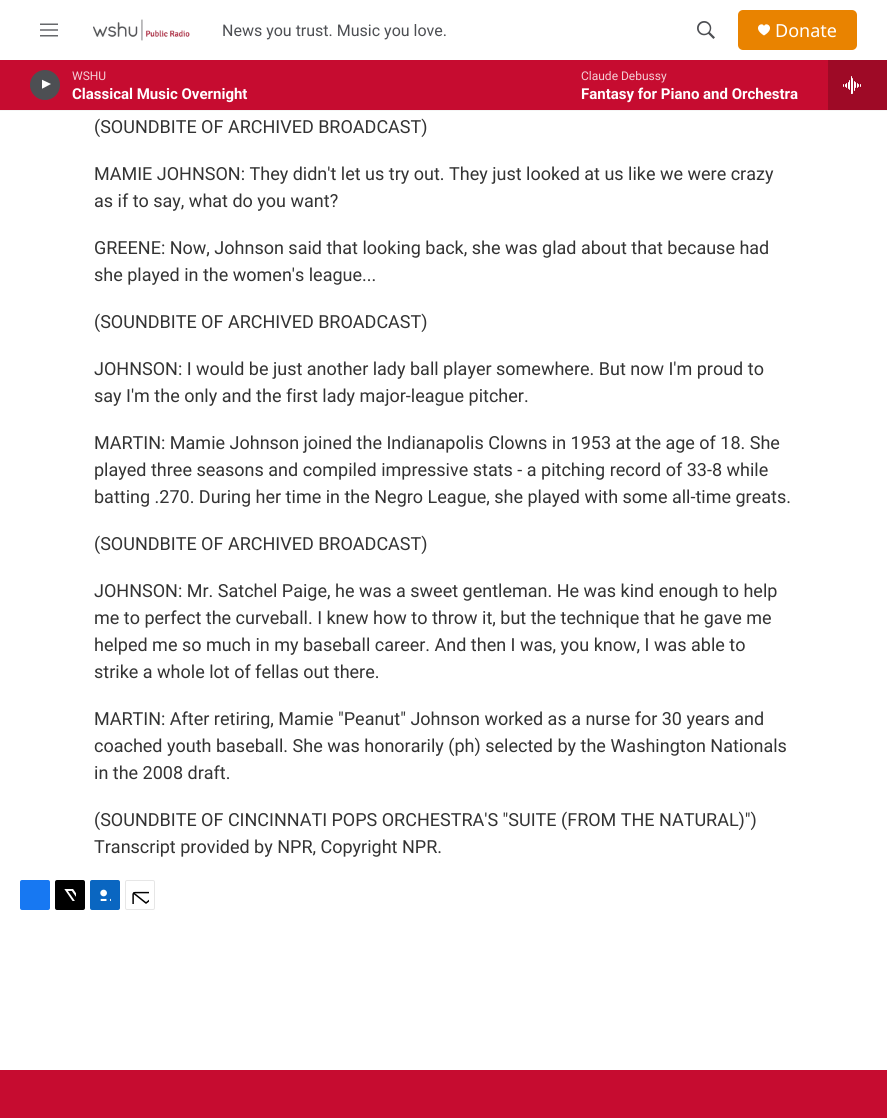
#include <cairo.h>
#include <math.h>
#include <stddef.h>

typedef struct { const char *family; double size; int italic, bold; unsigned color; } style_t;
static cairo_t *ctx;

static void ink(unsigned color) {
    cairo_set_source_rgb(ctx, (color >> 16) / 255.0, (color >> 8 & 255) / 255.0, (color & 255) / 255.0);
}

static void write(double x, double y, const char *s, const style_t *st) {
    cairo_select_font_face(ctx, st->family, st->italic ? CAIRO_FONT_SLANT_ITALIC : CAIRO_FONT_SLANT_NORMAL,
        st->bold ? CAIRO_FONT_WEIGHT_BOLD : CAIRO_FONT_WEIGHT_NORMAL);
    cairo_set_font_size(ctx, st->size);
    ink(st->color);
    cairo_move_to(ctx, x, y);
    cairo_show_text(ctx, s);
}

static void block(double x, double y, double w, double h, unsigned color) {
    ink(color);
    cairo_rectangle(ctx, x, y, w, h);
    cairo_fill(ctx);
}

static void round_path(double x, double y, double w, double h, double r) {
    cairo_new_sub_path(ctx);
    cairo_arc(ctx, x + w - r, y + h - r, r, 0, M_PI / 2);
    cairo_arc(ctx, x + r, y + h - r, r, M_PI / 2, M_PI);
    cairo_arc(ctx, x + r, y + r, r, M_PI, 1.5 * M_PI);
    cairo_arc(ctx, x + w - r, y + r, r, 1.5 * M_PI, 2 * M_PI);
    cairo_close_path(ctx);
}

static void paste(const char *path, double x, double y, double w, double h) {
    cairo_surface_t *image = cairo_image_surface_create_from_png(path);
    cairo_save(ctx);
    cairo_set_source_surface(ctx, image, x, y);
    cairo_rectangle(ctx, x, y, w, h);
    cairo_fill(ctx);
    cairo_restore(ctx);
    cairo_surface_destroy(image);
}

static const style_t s1 = {"Roboto", 16, 0, 0, 0x4d4f53};
static const style_t s2 = {"Noto Sans", 18, 0, 0, 0xffffff};
static const style_t s3 = {"Roboto", 12, 0, 0, 0xf4ced6};
static const style_t s4 = {"Roboto", 15, 0, 1, 0xffffff};
static const style_t s5 = {"Roboto", 18, 0, 0, 0x333333};

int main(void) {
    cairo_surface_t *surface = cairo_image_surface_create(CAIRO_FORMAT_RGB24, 887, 1118);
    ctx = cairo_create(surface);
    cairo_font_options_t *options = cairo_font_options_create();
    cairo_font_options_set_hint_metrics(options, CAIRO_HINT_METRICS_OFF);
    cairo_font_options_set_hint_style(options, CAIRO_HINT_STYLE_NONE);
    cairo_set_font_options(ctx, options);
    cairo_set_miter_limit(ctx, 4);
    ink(0xffffff);
    cairo_paint(ctx);
    block(0, 110, 887, 1, 0xf5f5f5);
    paste("pic1.png", 40, 23, 18, 14);
    paste("pic2.png", 93, 19, 97, 22);
    write(222, 36, "News you trust. Music you love.", &s1);
    paste("pic3.png", 697, 21, 18, 18);
    ink(0xe98300);
    round_path(738, 10, 119, 40, 5);
    cairo_fill(ctx);
    ink(0xffffff);
    cairo_new_path(ctx);
    cairo_move_to(ctx, 764, 26);
    cairo_curve_to(ctx, 762, 21, 751.5, 28, 764, 35.5);
    cairo_curve_to(ctx, 776.5, 28, 766, 21, 764, 26);
    cairo_close_path(ctx);
    cairo_fill(ctx);
    write(775, 37, "Donate", &s2);
    block(0, 60, 828, 50, 0xc60c30);
    ink(0x4d4f53);
    cairo_new_path(ctx);
    cairo_arc(ctx, 45, 85, 15, 0, 2 * M_PI);
    cairo_fill(ctx);
    cairo_save(ctx);
    cairo_rectangle(ctx, 42, 78, 12, 15);
    cairo_clip(ctx);
    ink(0xffffff);
    cairo_new_path(ctx);
    cairo_move_to(ctx, 41.5, 79.5);
    cairo_line_to(ctx, 51, 84);
    cairo_line_to(ctx, 41.5, 89);
    cairo_close_path(ctx);
    cairo_fill(ctx);
    cairo_restore(ctx);
    write(72, 80, "WSHU", &s3);
    write(72, 99, "Classical Music Overnight", &s4);
    write(581, 80, "Claude Debussy", &s3);
    write(581, 99, "Fantasy for Piano and Orchestra", &s4);
    block(828, 60, 59, 50, 0x9e0a26);
    paste("pic4.png", 843, 76, 18, 18);
    write(94, 133, "(SOUNDBITE OF ARCHIVED BROADCAST)", &s5);
    write(94, 180, "MAMIE JOHNSON: They didn't let us try out. They just looked at us like we were crazy", &s5);
    write(94, 207, "as if to say, what do you want?", &s5);
    write(94, 254, "GREENE: Now, Johnson said that looking back, she was glad about that because had", &s5);
    write(94, 281, "she played in the women's league...", &s5);
    write(94, 328, "(SOUNDBITE OF ARCHIVED BROADCAST)", &s5);
    write(94, 375, "JOHNSON: I would be just another lady ball player somewhere. But now I'm proud to", &s5);
    write(94, 402, "say I'm the only and the first lady major-league pitcher.", &s5);
    write(94, 449, "MARTIN: Mamie Johnson joined the Indianapolis Clowns in 1953 at the age of 18. She", &s5);
    write(94, 476, "played three seasons and compiled impressive stats - a pitching record of 33-8 while", &s5);
    write(94, 503, "batting .270. During her time in the Negro League, she played with some all-time greats.", &s5);
    write(94, 550, "(SOUNDBITE OF ARCHIVED BROADCAST)", &s5);
    write(94, 597, "JOHNSON: Mr. Satchel Paige, he was a sweet gentleman. He was kind enough to help", &s5);
    write(94, 624, "me to perfect the curveball. I knew how to throw it, but the technique that he gave me", &s5);
    write(94, 651, "helped me so much in my baseball career. And then I was, you know, I was able to", &s5);
    write(94, 678, "strike a whole lot of fellas out there.", &s5);
    write(94, 725, "MARTIN: After retiring, Mamie \"Peanut\" Johnson worked as a nurse for 30 years and", &s5);
    write(94, 752, "coached youth baseball. She was honorarily (ph) selected by the Washington Nationals", &s5);
    write(94, 779, "in the 2008 draft.", &s5);
    write(94, 826, "(SOUNDBITE OF CINCINNATI POPS ORCHESTRA'S \"SUITE (FROM THE NATURAL)\")", &s5);
    write(94, 853, "Transcript provided by NPR, Copyright NPR.", &s5);
    ink(0x1778f2);
    round_path(20, 880, 30, 30, 2);
    cairo_fill(ctx);
    ink(0x000000);
    round_path(55, 880, 30, 30, 2);
    cairo_fill(ctx);
    paste("pic5.png", 64, 889, 12, 12);
    ink(0x0a66c1);
    round_path(90, 880, 30, 30, 2);
    cairo_fill(ctx);
    paste("pic6.png", 100, 889, 11, 12);
    round_path(125.5, 880.5, 29, 29, 1.5);
    ink(0xe6e6e6);
    cairo_set_line_width(ctx, 1);
    cairo_stroke(ctx);
    paste("pic7.png", 132, 891, 17, 13);
    block(0, 1070, 887, 48, 0xc60c30);
    cairo_surface_write_to_png(surface, "screenshot.png");
    cairo_font_options_destroy(options);
    cairo_destroy(ctx);
    cairo_surface_destroy(surface);
    return 0;
}
